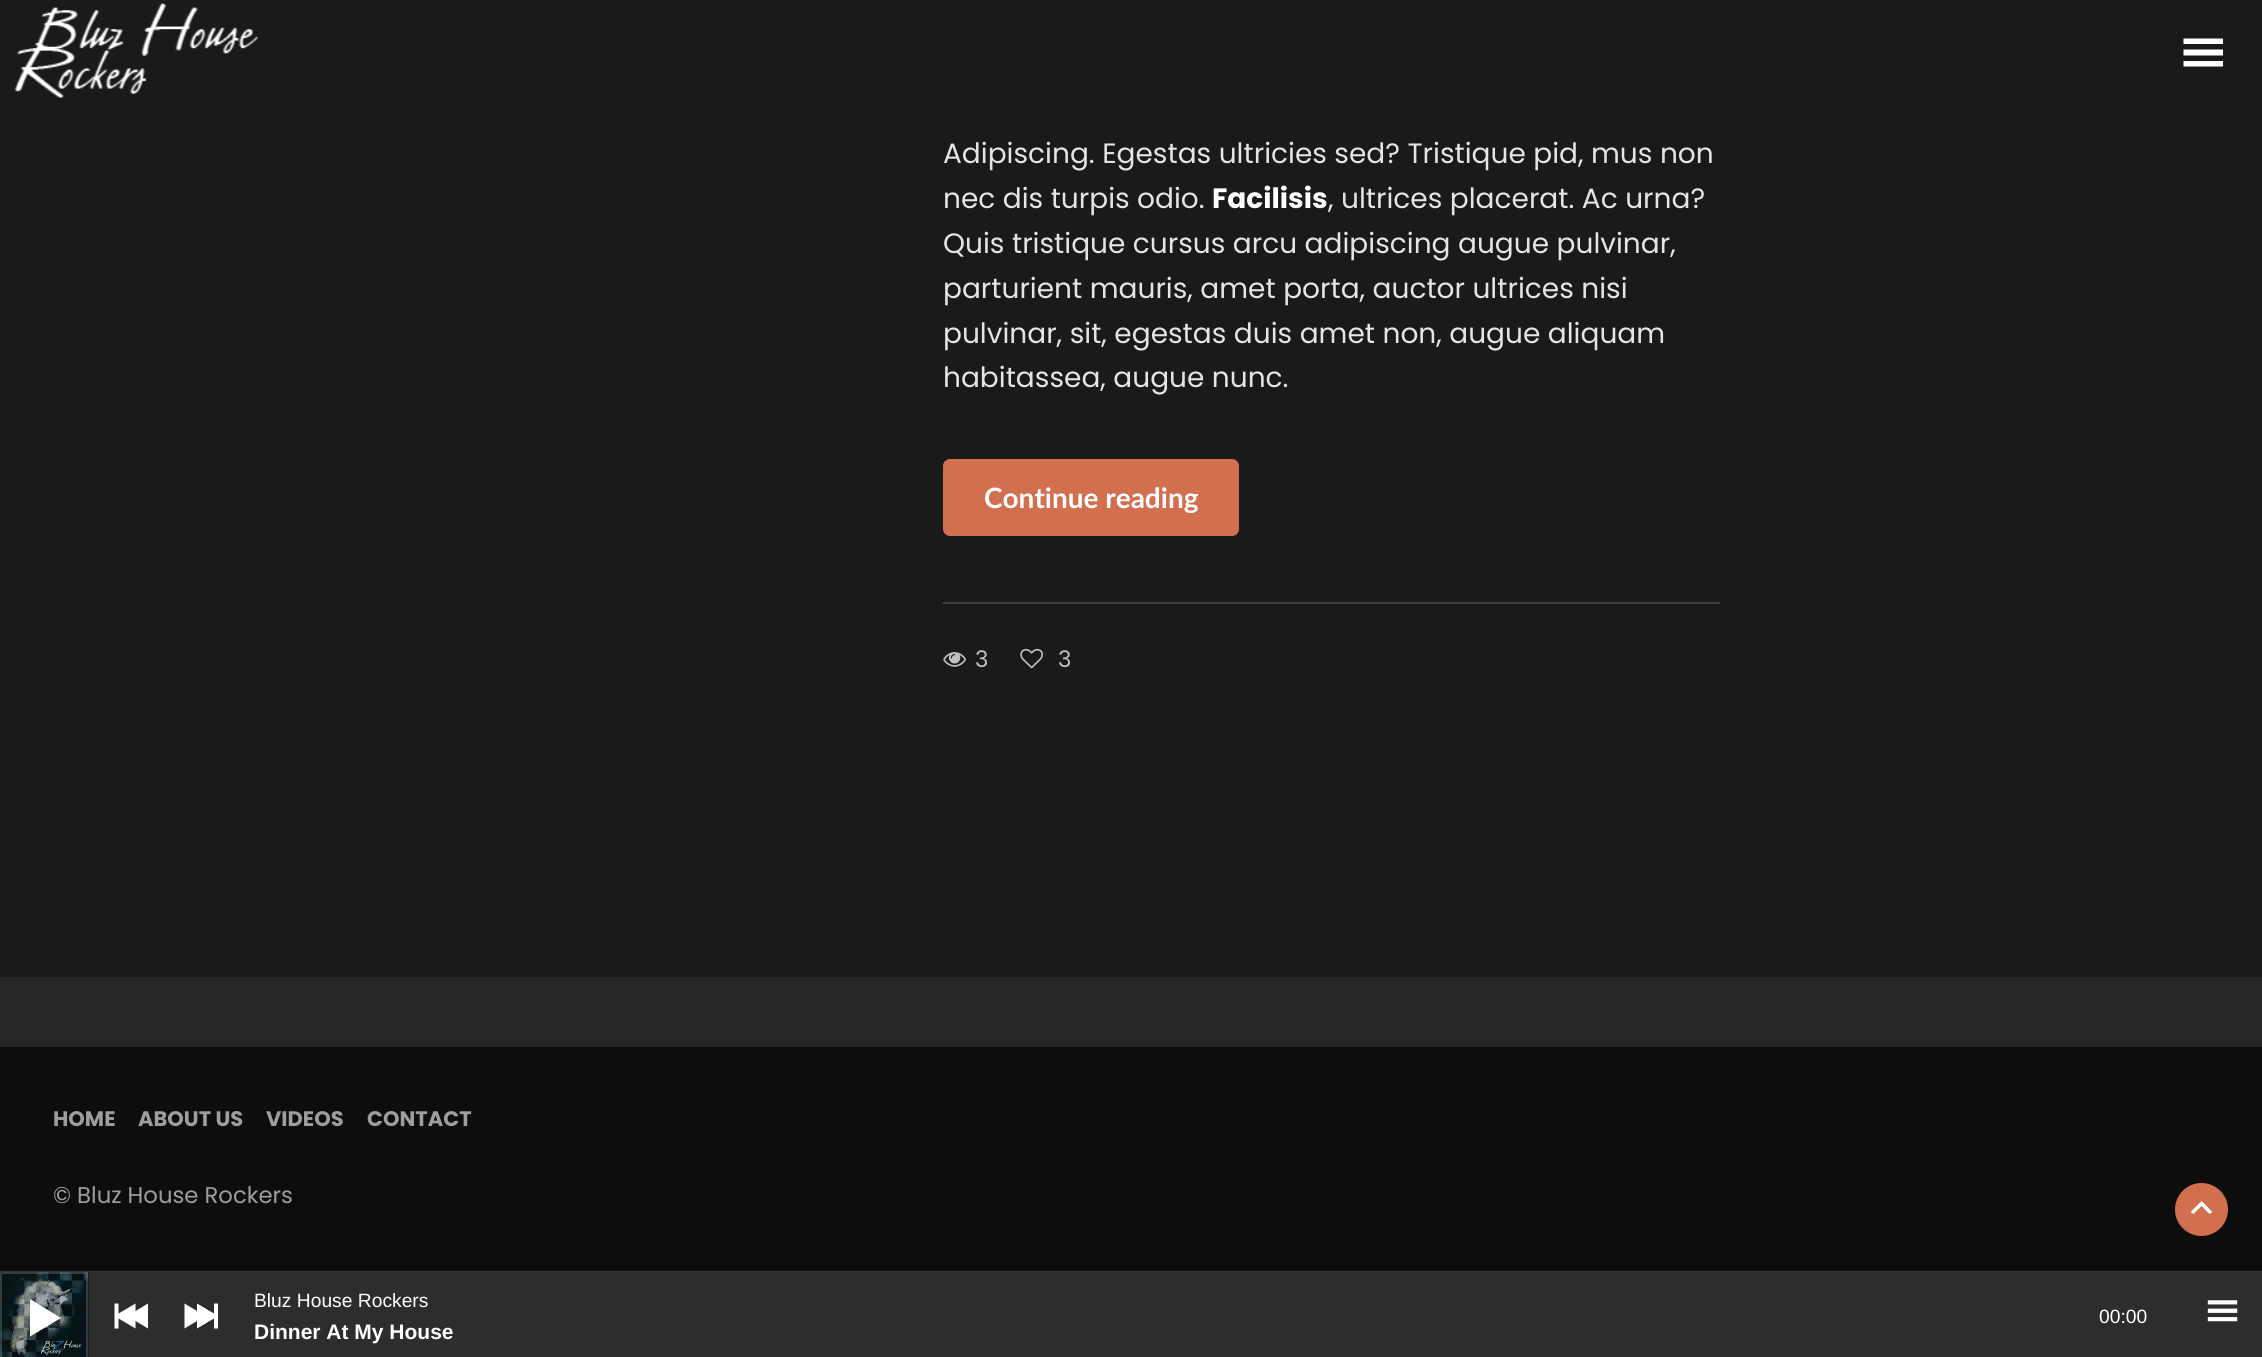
#include <cairo.h>
#include <math.h>
#include <stddef.h>

typedef struct { const char *family; double size; int italic, bold; unsigned color; } style_t;
static cairo_t *ctx;

static void ink(unsigned color) {
    cairo_set_source_rgb(ctx, (color >> 16) / 255.0, (color >> 8 & 255) / 255.0, (color & 255) / 255.0);
}

static void write(double x, double y, const char *s, const style_t *st) {
    cairo_select_font_face(ctx, st->family, st->italic ? CAIRO_FONT_SLANT_ITALIC : CAIRO_FONT_SLANT_NORMAL,
        st->bold ? CAIRO_FONT_WEIGHT_BOLD : CAIRO_FONT_WEIGHT_NORMAL);
    cairo_set_font_size(ctx, st->size);
    ink(st->color);
    cairo_move_to(ctx, x, y);
    cairo_show_text(ctx, s);
}

static void block(double x, double y, double w, double h, unsigned color) {
    ink(color);
    cairo_rectangle(ctx, x, y, w, h);
    cairo_fill(ctx);
}

static void round_path(double x, double y, double w, double h, double r) {
    cairo_new_sub_path(ctx);
    cairo_arc(ctx, x + w - r, y + h - r, r, 0, M_PI / 2);
    cairo_arc(ctx, x + r, y + h - r, r, M_PI / 2, M_PI);
    cairo_arc(ctx, x + r, y + r, r, M_PI, 1.5 * M_PI);
    cairo_arc(ctx, x + w - r, y + r, r, 1.5 * M_PI, 2 * M_PI);
    cairo_close_path(ctx);
}

static void paste(const char *path, double x, double y, double w, double h) {
    cairo_surface_t *image = cairo_image_surface_create_from_png(path);
    cairo_save(ctx);
    cairo_set_source_surface(ctx, image, x, y);
    cairo_rectangle(ctx, x, y, w, h);
    cairo_fill(ctx);
    cairo_restore(ctx);
    cairo_surface_destroy(image);
}

static const style_t s1 = {"Poppins", 28, 0, 0, 0xe5e5e5};
static const style_t s2 = {"Poppins", 28, 0, 1, 0xffffff};
static const style_t s3 = {"Lato", 28, 0, 1, 0xffffff};
static const style_t s4 = {"Poppins", 22.75, 0, 0, 0xc1c1c1};
static const style_t s5 = {"Poppins", 21, 0, 1, 0x9e9e9e};
static const style_t s6 = {"Poppins", 22.75, 0, 0, 0x9e9e9e};
static const style_t s7 = {"Liberation Sans", 19.25, 0, 0, 0xffffff};
static const style_t s8 = {"Liberation Sans", 21, 0, 1, 0xffffff};

int main(void) {
    cairo_surface_t *surface = cairo_image_surface_create(CAIRO_FORMAT_RGB24, 2262, 1357);
    ctx = cairo_create(surface);
    cairo_font_options_t *options = cairo_font_options_create();
    cairo_font_options_set_hint_metrics(options, CAIRO_HINT_METRICS_OFF);
    cairo_font_options_set_hint_style(options, CAIRO_HINT_STYLE_NONE);
    cairo_set_font_options(ctx, options);
    cairo_set_miter_limit(ctx, 4);
    ink(0x262626);
    cairo_paint(ctx);
    block(0, 0, 2262, 977, 0x1a1a1a);
    paste("pic1.png", 14, 3, 244, 95);
    ink(0xffffff);
    cairo_new_path(ctx);
    cairo_move_to(ctx, 2183.5, 66.5);
    cairo_line_to(ctx, 2223, 66.5);
    cairo_line_to(ctx, 2223, 61);
    cairo_line_to(ctx, 2183.5, 61);
    cairo_close_path(ctx);
    cairo_move_to(ctx, 2183.5, 38.5);
    cairo_line_to(ctx, 2183.5, 44);
    cairo_line_to(ctx, 2223, 44);
    cairo_line_to(ctx, 2223, 38.5);
    cairo_close_path(ctx);
    cairo_move_to(ctx, 2183.5, 55.5);
    cairo_line_to(ctx, 2223, 55.5);
    cairo_line_to(ctx, 2223, 49.5);
    cairo_line_to(ctx, 2183.5, 49.5);
    cairo_close_path(ctx);
    cairo_fill(ctx);
    write(943, 163, "Adipiscing. Egestas ultricies sed? Tristique pid, mus non", &s1);
    write(943, 208, "nec dis turpis odio.", &s1);
    write(1212, 208, "Facilisis", &s2);
    write(1328, 208, ", ultrices placerat. Ac urna?", &s1);
    write(943, 253, "Quis tristique cursus arcu adipiscing augue pulvinar,", &s1);
    write(943, 298, "parturient mauris, amet porta, auctor ultrices nisi", &s1);
    write(943, 343, "pulvinar, sit, egestas duis amet non, augue aliquam", &s1);
    write(943, 387, "habitassea, augue nunc.", &s1);
    ink(0xd16f4e);
    round_path(944, 460, 294, 75, 6);
    cairo_fill_preserve(ctx);
    cairo_stroke(ctx);
    write(984, 508, "Continue reading", &s3);
    block(943, 602, 777, 2, 0x3c3c3c);
    paste("pic2.png", 943, 652, 23, 15);
    write(975, 667, "3", &s4);
    paste("pic3.png", 1020, 648, 23, 21);
    write(1058, 667, "3", &s4);
    block(0, 1047, 2262, 224, 0x0d0d0d);
    write(53, 1126, "HOME", &s5);
    write(138, 1126, "ABOUT US", &s5);
    write(266, 1126, "VIDEOS", &s5);
    write(367, 1126, "CONTACT", &s5);
    write(53, 1203, "© Bluz House Rockers", &s6);
    ink(0xd16f4e);
    cairo_new_path(ctx);
    cairo_arc(ctx, 2201.5, 1209.5, 24.5, 0, 2 * M_PI);
    cairo_fill_preserve(ctx);
    cairo_set_line_width(ctx, 4);
    cairo_stroke(ctx);
    ink(0xffffff);
    cairo_new_path(ctx);
    cairo_move_to(ctx, 2209.5, 1214);
    cairo_line_to(ctx, 2201.5, 1206);
    cairo_line_to(ctx, 2193.5, 1214);
    cairo_line_to(ctx, 2190.5, 1212);
    cairo_line_to(ctx, 2201.5, 1201);
    cairo_line_to(ctx, 2212.5, 1212);
    cairo_close_path(ctx);
    cairo_fill(ctx);
    block(0, 1271, 2262, 1, 0x383838);
    block(89, 1272, 2173, 85, 0x2d2d2d);
    cairo_save(ctx);
    cairo_rectangle(ctx, 0, 1272, 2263, 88);
    cairo_clip(ctx);
    cairo_rectangle(ctx, -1, 1272, 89, 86);
    ink(0x202020);
    cairo_set_line_width(ctx, 2);
    cairo_stroke(ctx);
    cairo_restore(ctx);
    paste("pic4.png", 0, 1272, 88, 85);
    cairo_rectangle(ctx, 1, 1273, 86, 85);
    cairo_set_source_rgba(ctx, 1, 1, 1, 0.2);
    cairo_set_line_width(ctx, 2);
    cairo_stroke(ctx);
    write(254, 1307, "Bluz House Rockers", &s7);
    write(254, 1339, "Dinner At My House", &s8);
    cairo_set_source_rgba(ctx, 0, 0, 0, 0.1);
    cairo_rectangle(ctx, 0, 1272, 88, 85);
    cairo_fill(ctx);
    ink(0xffffff);
    cairo_new_path(ctx);
    cairo_move_to(ctx, 30, 1299);
    cairo_line_to(ctx, 61, 1318);
    cairo_line_to(ctx, 30, 1336.5);
    cairo_close_path(ctx);
    cairo_fill(ctx);
    cairo_new_path(ctx);
    cairo_move_to(ctx, 135.5, 1311);
    cairo_line_to(ctx, 148, 1303.5);
    cairo_line_to(ctx, 148, 1328.5);
    cairo_line_to(ctx, 135.5, 1321);
    cairo_line_to(ctx, 135.5, 1328.5);
    cairo_line_to(ctx, 118.5, 1318.5);
    cairo_line_to(ctx, 118.5, 1328.5);
    cairo_line_to(ctx, 114.5, 1328.5);
    cairo_line_to(ctx, 114.5, 1303.5);
    cairo_line_to(ctx, 118.5, 1303.5);
    cairo_line_to(ctx, 118.5, 1313.5);
    cairo_line_to(ctx, 135.5, 1303.5);
    cairo_close_path(ctx);
    cairo_fill(ctx);
    cairo_new_path(ctx);
    cairo_move_to(ctx, 197, 1321);
    cairo_line_to(ctx, 184.5, 1328.5);
    cairo_line_to(ctx, 184.5, 1303.5);
    cairo_line_to(ctx, 197, 1311);
    cairo_line_to(ctx, 197, 1303.5);
    cairo_line_to(ctx, 214, 1313.5);
    cairo_line_to(ctx, 214, 1303.5);
    cairo_line_to(ctx, 218, 1303.5);
    cairo_line_to(ctx, 218, 1328.5);
    cairo_line_to(ctx, 214, 1328.5);
    cairo_line_to(ctx, 214, 1318.5);
    cairo_line_to(ctx, 197, 1328.5);
    cairo_close_path(ctx);
    cairo_fill(ctx);
    write(2099, 1323, "00:00", &s7);
    paste("pic5.png", 2207, 1300, 31, 22);
    cairo_surface_write_to_png(surface, "screenshot.png");
    cairo_font_options_destroy(options);
    cairo_destroy(ctx);
    cairo_surface_destroy(surface);
    return 0;
}
